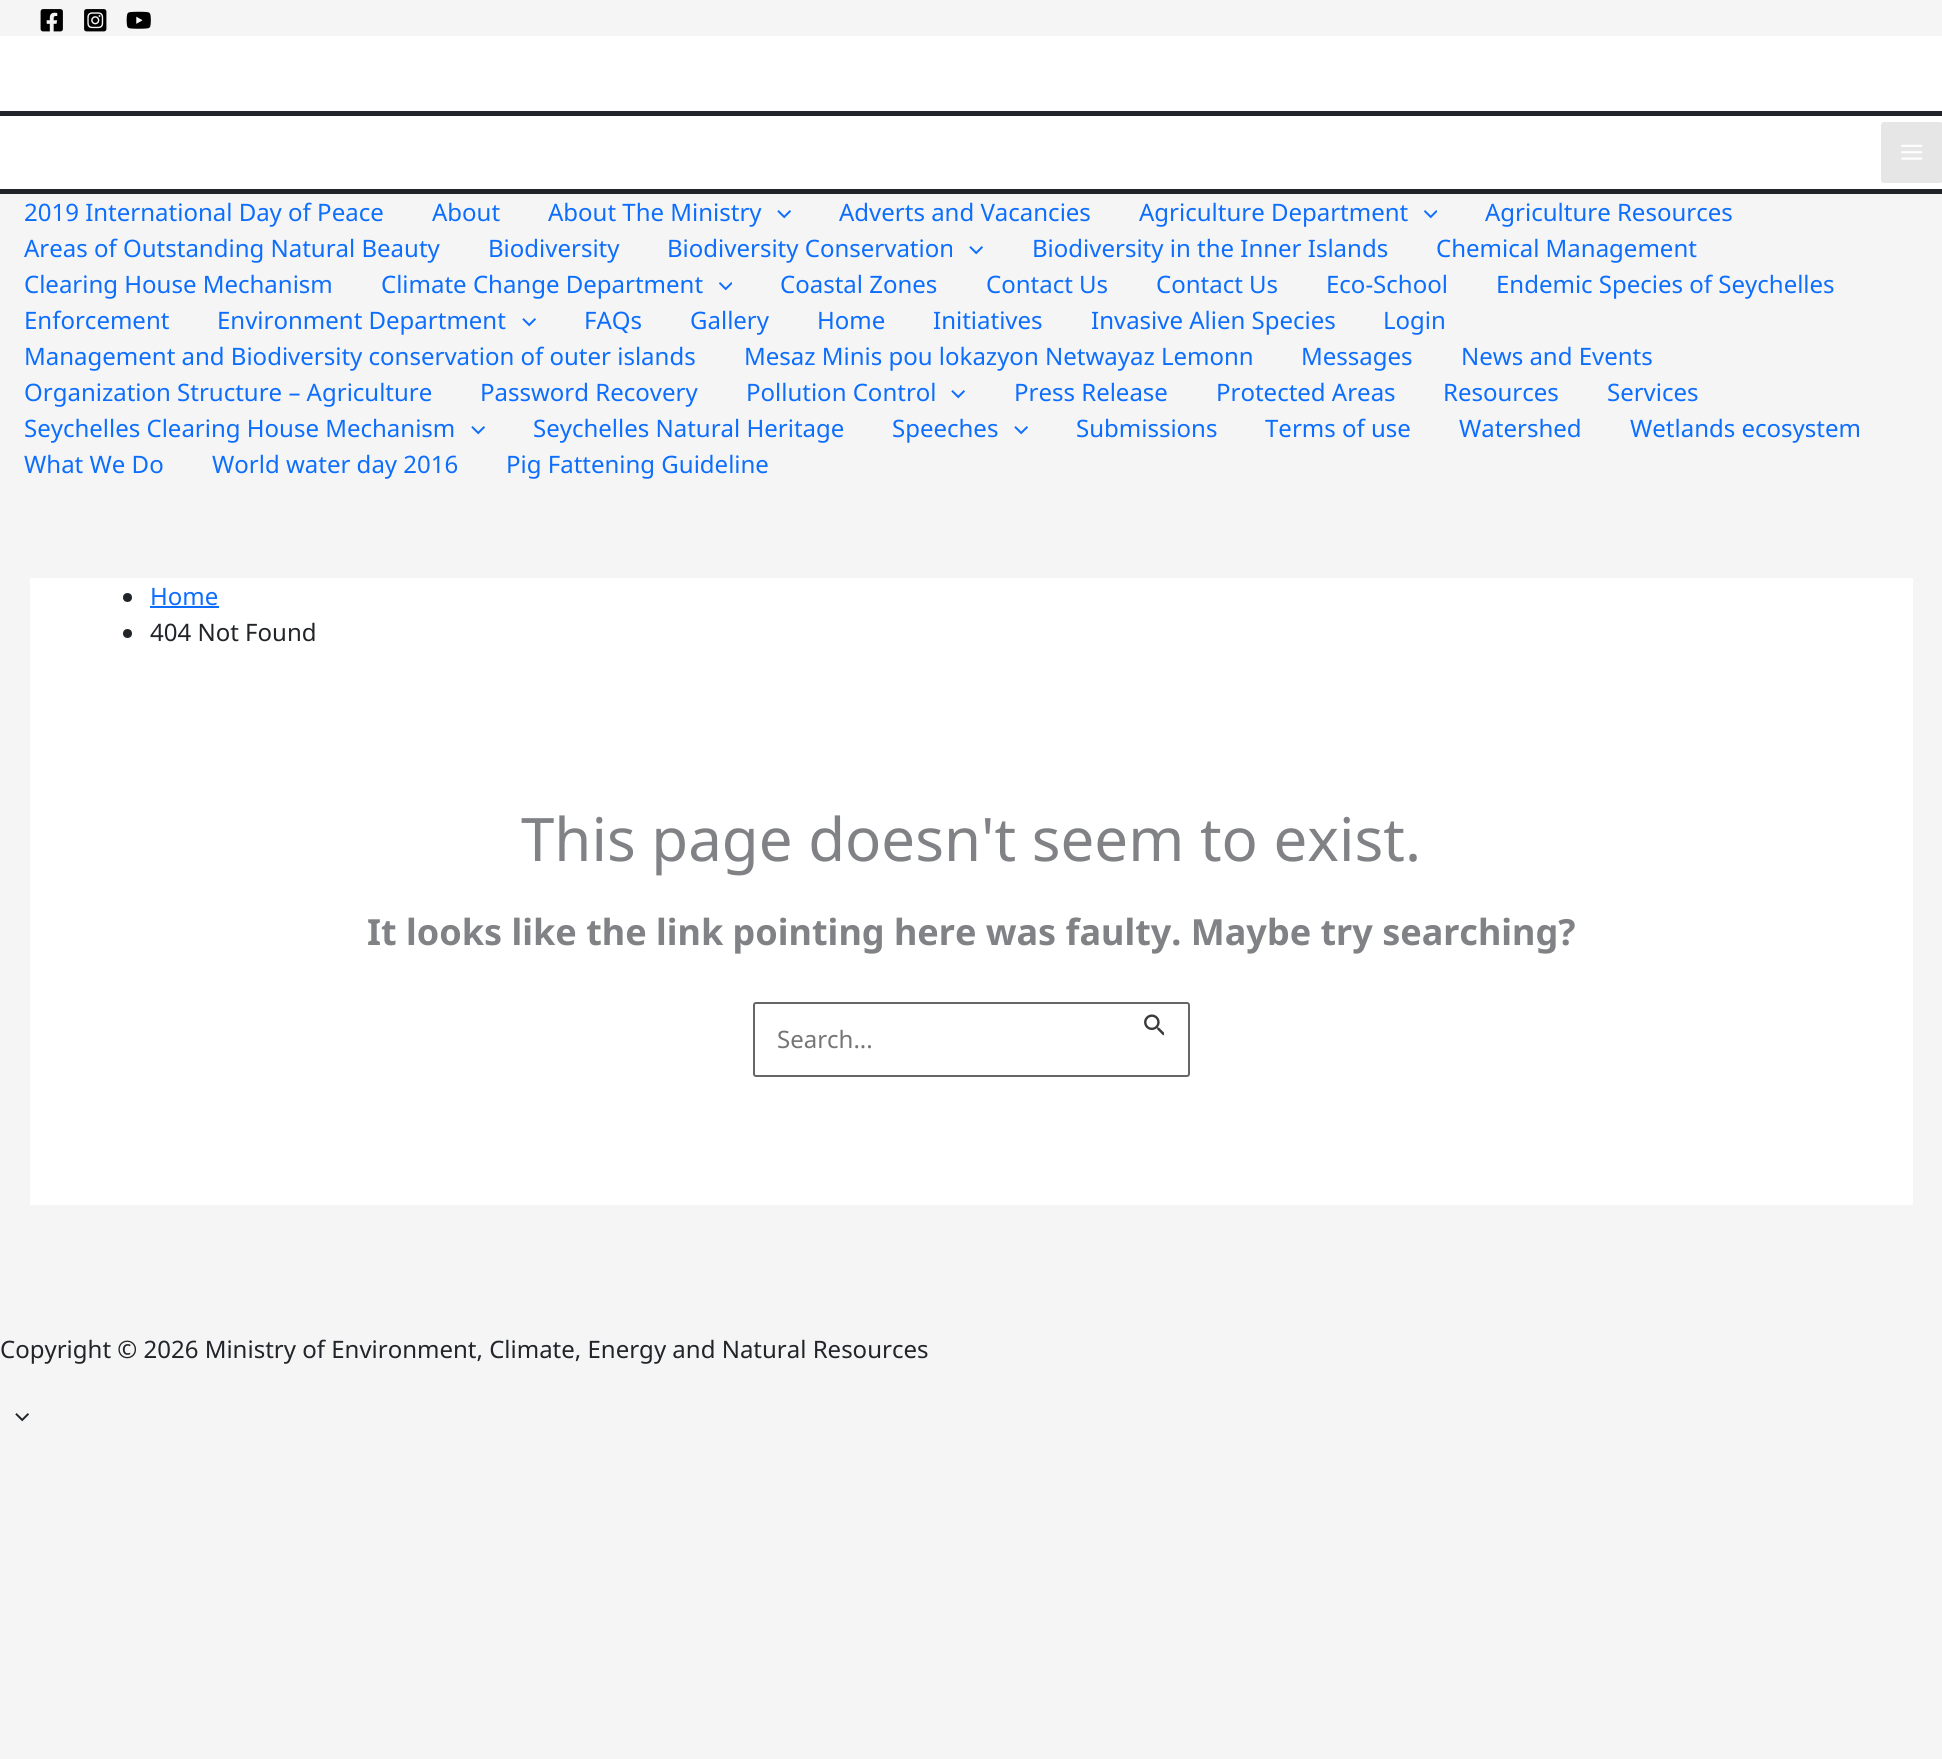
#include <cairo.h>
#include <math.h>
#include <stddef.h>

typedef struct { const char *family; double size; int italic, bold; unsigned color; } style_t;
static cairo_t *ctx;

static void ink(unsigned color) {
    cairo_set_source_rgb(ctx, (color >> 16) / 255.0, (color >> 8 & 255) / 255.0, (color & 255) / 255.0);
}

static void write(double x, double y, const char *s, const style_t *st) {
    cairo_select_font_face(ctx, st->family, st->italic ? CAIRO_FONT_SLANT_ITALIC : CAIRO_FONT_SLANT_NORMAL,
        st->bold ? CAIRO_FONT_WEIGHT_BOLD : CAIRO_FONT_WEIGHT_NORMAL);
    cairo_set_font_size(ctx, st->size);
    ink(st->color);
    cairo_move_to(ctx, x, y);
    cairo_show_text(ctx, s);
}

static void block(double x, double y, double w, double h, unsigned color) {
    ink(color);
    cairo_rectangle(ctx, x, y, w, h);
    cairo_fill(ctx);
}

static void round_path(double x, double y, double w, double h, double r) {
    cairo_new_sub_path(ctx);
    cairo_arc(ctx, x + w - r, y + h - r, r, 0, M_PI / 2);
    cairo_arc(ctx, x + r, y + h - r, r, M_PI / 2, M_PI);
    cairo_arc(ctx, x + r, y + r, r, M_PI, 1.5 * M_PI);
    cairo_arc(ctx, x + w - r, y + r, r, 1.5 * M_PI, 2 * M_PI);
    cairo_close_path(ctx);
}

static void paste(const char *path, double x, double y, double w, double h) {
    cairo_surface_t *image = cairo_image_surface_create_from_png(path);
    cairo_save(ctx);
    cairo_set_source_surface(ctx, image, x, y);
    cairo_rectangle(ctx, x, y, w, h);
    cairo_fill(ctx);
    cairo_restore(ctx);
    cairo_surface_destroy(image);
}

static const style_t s1 = {"Noto Sans", 24, 0, 0, 0x0d6efd};
static const style_t s2 = {"Noto Sans", 24, 0, 0, 0x212529};
static const style_t s3 = {"Noto Sans", 60, 0, 0, 0x808285};
static const style_t s4 = {"Noto Sans", 36, 0, 1, 0x808285};
static const style_t s5 = {"Noto Sans", 24, 0, 0, 0x757575};

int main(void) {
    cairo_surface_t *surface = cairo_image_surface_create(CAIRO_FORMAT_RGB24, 1942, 1759);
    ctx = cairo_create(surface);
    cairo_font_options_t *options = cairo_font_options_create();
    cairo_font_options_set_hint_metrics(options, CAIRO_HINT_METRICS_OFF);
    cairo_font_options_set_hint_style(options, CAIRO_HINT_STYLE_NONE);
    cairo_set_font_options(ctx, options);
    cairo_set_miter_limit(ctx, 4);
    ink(0xf5f5f5);
    cairo_paint(ctx);
    paste("pic1.png", 40, 9, 23, 23);
    paste("pic2.png", 84, 9, 23, 23);
    paste("pic3.png", 126, 11, 25, 18);
    block(0, 36, 1942, 75, 0xffffff);
    block(0, 111, 1942, 5, 0x212529);
    block(0, 116, 1942, 73, 0xffffff);
    block(0, 189, 1942, 5, 0x212529);
    ink(0xe6e6e6);
    round_path(1881, 122, 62, 61, 3);
    cairo_fill(ctx);
    paste("pic4.png", 1901, 144, 22, 16);
    write(24, 221, "2019 International Day of Peace", &s1);
    write(432, 221, "About", &s1);
    write(548, 221, "About The Ministry", &s1);
    paste("pic5.png", 777, 210, 14, 9);
    write(839, 221, "Adverts and Vacancies", &s1);
    write(1139, 221, "Agriculture Department", &s1);
    paste("pic6.png", 1424, 210, 13, 9);
    write(1485, 221, "Agriculture Resources", &s1);
    write(24, 257, "Areas of Outstanding Natural Beauty", &s1);
    write(488, 257, "Biodiversity", &s1);
    write(667, 257, "Biodiversity Conservation", &s1);
    paste("pic5.png", 969, 246, 14, 9);
    write(1032, 257, "Biodiversity in the Inner Islands", &s1);
    write(1436, 257, "Chemical Management", &s1);
    write(24, 293, "Clearing House Mechanism", &s1);
    write(381, 293, "Climate Change Department", &s1);
    paste("pic6.png", 719, 282, 13, 9);
    write(780, 293, "Coastal Zones", &s1);
    write(986, 293, "Contact Us", &s1);
    write(1156, 293, "Contact Us", &s1);
    write(1326, 293, "Eco-School", &s1);
    write(1496, 293, "Endemic Species of Seychelles", &s1);
    write(24, 329, "Enforcement", &s1);
    write(217, 329, "Environment Department", &s1);
    paste("pic5.png", 522, 318, 14, 9);
    write(584, 329, "FAQs", &s1);
    write(690, 329, "Gallery", &s1);
    write(817, 329, "Home", &s1);
    write(933, 329, "Initiatives", &s1);
    write(1091, 329, "Invasive Alien Species", &s1);
    write(1383, 329, "Login", &s1);
    write(24, 365, "Management and Biodiversity conservation of outer islands", &s1);
    write(744, 365, "Mesaz Minis pou lokazyon Netwayaz Lemonn", &s1);
    write(1301, 365, "Messages", &s1);
    write(1461, 365, "News and Events", &s1);
    write(24, 401, "Organization Structure – Agriculture", &s1);
    write(480, 401, "Password Recovery", &s1);
    write(746, 401, "Pollution Control", &s1);
    paste("pic5.png", 951, 390, 14, 9);
    write(1014, 401, "Press Release", &s1);
    write(1216, 401, "Protected Areas", &s1);
    write(1443, 401, "Resources", &s1);
    write(1607, 401, "Services", &s1);
    write(24, 437, "Seychelles Clearing House Mechanism", &s1);
    paste("pic5.png", 471, 426, 14, 9);
    write(533, 437, "Seychelles Natural Heritage", &s1);
    write(892, 437, "Speeches", &s1);
    paste("pic5.png", 1014, 426, 14, 9);
    write(1076, 437, "Submissions", &s1);
    write(1265, 437, "Terms of use", &s1);
    write(1459, 437, "Watershed", &s1);
    write(1630, 437, "Wetlands ecosystem", &s1);
    write(24, 473, "What We Do", &s1);
    write(212, 473, "World water day 2016", &s1);
    write(506, 473, "Pig Fattening Guideline", &s1);
    block(30, 578, 1883, 627, 0xffffff);
    ink(0x212529);
    cairo_new_path(ctx);
    cairo_arc(ctx, 127.5, 597.5, 4.5, 0, 2 * M_PI);
    cairo_fill(ctx);
    write(150, 605, "Home", &s1);
    block(150, 606, 69, 2, 0x0d6efd);
    ink(0x212529);
    cairo_new_path(ctx);
    cairo_arc(ctx, 127.5, 633.5, 4.5, 0, 2 * M_PI);
    cairo_fill(ctx);
    write(150, 641, "404 Not Found", &s2);
    write(521, 861, "This page doesn't seem to exist.", &s3);
    write(367, 945, "It looks like the link pointing here was faulty. Maybe try searching?", &s4);
    round_path(754, 1003, 435, 73, 2);
    ink(0x666666);
    cairo_stroke(ctx);
    paste("pic7.png", 1144, 1014, 20, 22);
    write(777, 1048, "Search...", &s5);
    write(0, 1358, "Copyright © 2026 Ministry of Environment, Climate, Energy and Natural Resources", &s2);
    paste("pic8.png", 15, 1413, 14, 9);
    cairo_surface_write_to_png(surface, "screenshot.png");
    cairo_font_options_destroy(options);
    cairo_destroy(ctx);
    cairo_surface_destroy(surface);
    return 0;
}
